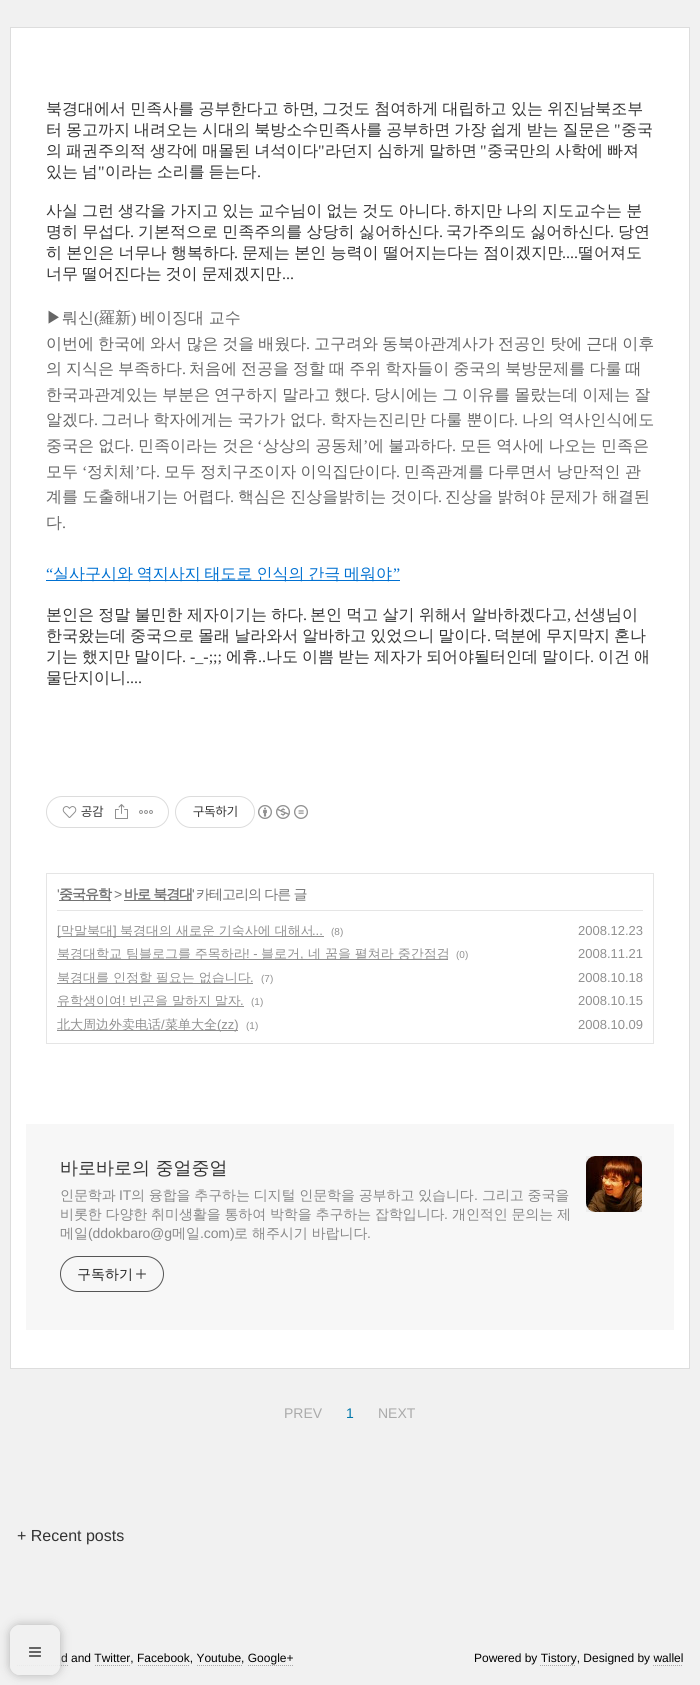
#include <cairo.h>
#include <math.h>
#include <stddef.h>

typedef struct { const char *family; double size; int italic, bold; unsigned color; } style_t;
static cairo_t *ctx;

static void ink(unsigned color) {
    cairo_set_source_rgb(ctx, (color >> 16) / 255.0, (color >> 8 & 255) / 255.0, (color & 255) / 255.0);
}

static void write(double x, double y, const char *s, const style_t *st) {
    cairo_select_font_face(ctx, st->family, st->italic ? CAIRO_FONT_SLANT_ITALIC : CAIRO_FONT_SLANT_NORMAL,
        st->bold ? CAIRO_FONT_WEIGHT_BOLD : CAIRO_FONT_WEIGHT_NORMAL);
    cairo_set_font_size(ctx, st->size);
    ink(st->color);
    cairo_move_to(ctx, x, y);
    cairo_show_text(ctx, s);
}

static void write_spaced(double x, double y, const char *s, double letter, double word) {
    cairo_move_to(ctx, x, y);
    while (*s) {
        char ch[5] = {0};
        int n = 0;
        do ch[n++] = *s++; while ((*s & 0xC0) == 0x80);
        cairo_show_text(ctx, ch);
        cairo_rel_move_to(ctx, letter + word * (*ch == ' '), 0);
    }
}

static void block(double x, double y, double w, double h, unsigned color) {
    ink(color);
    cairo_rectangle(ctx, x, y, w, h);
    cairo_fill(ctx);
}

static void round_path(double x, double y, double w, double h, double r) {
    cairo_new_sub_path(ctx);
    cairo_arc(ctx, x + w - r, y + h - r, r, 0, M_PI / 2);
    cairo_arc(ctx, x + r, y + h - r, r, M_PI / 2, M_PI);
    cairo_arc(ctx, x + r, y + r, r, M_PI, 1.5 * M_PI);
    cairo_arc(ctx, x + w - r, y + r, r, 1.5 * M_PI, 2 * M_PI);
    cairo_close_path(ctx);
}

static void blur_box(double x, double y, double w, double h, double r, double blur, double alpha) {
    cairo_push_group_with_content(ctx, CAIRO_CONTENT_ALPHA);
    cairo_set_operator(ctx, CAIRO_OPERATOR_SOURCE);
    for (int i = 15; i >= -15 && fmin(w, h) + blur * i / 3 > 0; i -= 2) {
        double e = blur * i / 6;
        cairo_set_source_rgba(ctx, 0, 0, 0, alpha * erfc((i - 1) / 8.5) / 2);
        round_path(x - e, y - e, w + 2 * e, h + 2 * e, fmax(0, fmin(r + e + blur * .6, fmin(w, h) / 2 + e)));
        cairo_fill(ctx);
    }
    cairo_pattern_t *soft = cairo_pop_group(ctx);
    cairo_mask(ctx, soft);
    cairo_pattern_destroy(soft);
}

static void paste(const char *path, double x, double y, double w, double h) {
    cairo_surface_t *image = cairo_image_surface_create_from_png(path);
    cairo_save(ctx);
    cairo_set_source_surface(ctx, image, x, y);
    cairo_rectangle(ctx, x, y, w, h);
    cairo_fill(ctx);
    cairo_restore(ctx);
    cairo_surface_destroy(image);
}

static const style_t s1 = {"Liberation Serif", 16, 0, 0, 0x333333};
static const style_t s2 = {"WenQuanYi Zen Hei Medium", 16, 0, 0, 0x333333};
static const style_t s3 = {"WenQuanYi Zen Hei Medium", 16, 0, 0, 0x666666};
static const style_t s4 = {"Liberation Serif", 16, 0, 0, 0x666666};
static const style_t s5 = {"Liberation Serif", 16, 0, 0, 0x0070d1};
static const style_t s6 = {"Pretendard", 13, 0, 0, 0x333333};
static const style_t s7 = {"Liberation Sans", 13, 0, 0, 0x909090};
static const style_t s8 = {"WenQuanYi Zen Hei Medium", 13, 0, 0, 0x909090};
static const style_t s9 = {"Liberation Sans", 10, 0, 0, 0x909090};
static const style_t s10 = {"WenQuanYi Zen Hei Medium", 18, 0, 0, 0x333333};
static const style_t s11 = {"WenQuanYi Zen Hei Medium", 14, 0, 0, 0x222222};
static const style_t s12 = {"Liberation Sans", 14, 0, 0, 0xaaaaaa};
static const style_t s13 = {"Liberation Sans", 14, 0, 0, 0x0077aa};
static const style_t s14 = {"Liberation Sans", 16, 0, 0, 0x333333};
static const style_t s15 = {"Liberation Sans", 12, 0, 0, 0x000000};

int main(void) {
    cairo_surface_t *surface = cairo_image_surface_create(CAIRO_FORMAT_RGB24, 700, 1685);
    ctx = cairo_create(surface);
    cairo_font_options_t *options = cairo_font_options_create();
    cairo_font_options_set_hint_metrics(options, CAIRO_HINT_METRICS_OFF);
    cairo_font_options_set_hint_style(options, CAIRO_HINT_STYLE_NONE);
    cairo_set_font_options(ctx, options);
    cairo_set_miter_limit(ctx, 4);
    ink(0xf1f1f1);
    cairo_paint(ctx);
    ink(0xffffff);
    cairo_rectangle(ctx, 10.5, 27.5, 679, 1341);
    cairo_fill_preserve(ctx);
    ink(0xdddddd);
    cairo_set_line_width(ctx, 1);
    cairo_stroke(ctx);
    cairo_select_font_face(ctx, "WenQuanYi Zen Hei Medium", CAIRO_FONT_SLANT_NORMAL, CAIRO_FONT_WEIGHT_NORMAL);
    cairo_set_font_size(ctx, 16);
    ink(0x333333);
    write_spaced(46, 114, "북경대에서 민족사를 공부한다고 하면", 0, -0.5);
    write(314, 114, ",", &s1);
    cairo_select_font_face(ctx, "WenQuanYi Zen Hei Medium", CAIRO_FONT_SLANT_NORMAL, CAIRO_FONT_WEIGHT_NORMAL);
    write_spaced(322, 114, "그것도 첨여하게 대립하고 있는 위진남북조부", 0, -0.5);
    write_spaced(46, 135, "터 몽고까지 내려오는 시대의 북방소수민족사를 공부하면 가장 쉽게 받는 질문은", 0, -0.75);
    write(614, 135, "\"", &s1);
    write(621, 135, "중국", &s2);
    write_spaced(46, 156, "의 패권주의적 생각에 매몰된 녀석이다", 0, -0.75);
    write(318, 156, "\"", &s1);
    cairo_select_font_face(ctx, "WenQuanYi Zen Hei Medium", CAIRO_FONT_SLANT_NORMAL, CAIRO_FONT_WEIGHT_NORMAL);
    write_spaced(325, 156, "라던지 심하게 말하면", 0, -0.75);
    write(480, 156, "\"", &s1);
    cairo_select_font_face(ctx, "WenQuanYi Zen Hei Medium", CAIRO_FONT_SLANT_NORMAL, CAIRO_FONT_WEIGHT_NORMAL);
    write_spaced(487, 156, "중국만의 사학에 빠져", 0, -0.75);
    write_spaced(46, 177, "있는 넘", 0, -1);
    write(98, 177, "\"", &s1);
    cairo_select_font_face(ctx, "WenQuanYi Zen Hei Medium", CAIRO_FONT_SLANT_NORMAL, CAIRO_FONT_WEIGHT_NORMAL);
    write_spaced(105, 177, "이라는 소리를 듣는다", 0, -1);
    write(257, 177, ".", &s1);
    cairo_select_font_face(ctx, "WenQuanYi Zen Hei Medium", CAIRO_FONT_SLANT_NORMAL, CAIRO_FONT_WEIGHT_NORMAL);
    write_spaced(46, 216, "사실 그런 생각을 가지고 있는 교수님이 없는 것도 아니다", 0, -0.75);
    write(447, 216, ".", &s1);
    cairo_select_font_face(ctx, "WenQuanYi Zen Hei Medium", CAIRO_FONT_SLANT_NORMAL, CAIRO_FONT_WEIGHT_NORMAL);
    write_spaced(454, 216, "하지만 나의 지도교수는 분", 0, -0.75);
    write_spaced(46, 237, "명히 무섭다", 0, -0.5);
    write(130, 237, ".", &s1);
    cairo_select_font_face(ctx, "WenQuanYi Zen Hei Medium", CAIRO_FONT_SLANT_NORMAL, CAIRO_FONT_WEIGHT_NORMAL);
    write_spaced(138, 237, "기본적으로 민족주의를 상당히 싫어하신다", 0, -0.5);
    write(439, 237, ".", &s1);
    cairo_select_font_face(ctx, "WenQuanYi Zen Hei Medium", CAIRO_FONT_SLANT_NORMAL, CAIRO_FONT_WEIGHT_NORMAL);
    write_spaced(446, 237, "국가주의도 싫어하신다", 0, -0.5);
    write(610, 237, ".", &s1);
    write(618, 237, "당연", &s2);
    write_spaced(46, 258, "히 본인은 너무나 행복하다", 0, -0.5);
    write(234, 258, ".", &s1);
    cairo_select_font_face(ctx, "WenQuanYi Zen Hei Medium", CAIRO_FONT_SLANT_NORMAL, CAIRO_FONT_WEIGHT_NORMAL);
    write_spaced(242, 258, "문제는 본인 능력이 떨어지는다는 점이겠지만", 0, -0.5);
    write(562, 258, "....", &s1);
    write(578, 258, "떨어져도", &s2);
    write_spaced(46, 279, "너무 떨어진다는 것이 문제겠지만", 0, -1);
    write(282, 279, "...", &s1);
    write(46, 323, "▶뤄신", &s3);
    write(94, 323, "(", &s4);
    write(99, 323, "羅新", &s3);
    write(131, 323, ")", &s4);
    write(140, 323, "베이징대 교수", &s3);
    write_spaced(46, 349, "이번에 한국에 와서 많은 것을 배웠다", 0, -0.75);
    write(306, 349, ".", &s4);
    cairo_select_font_face(ctx, "WenQuanYi Zen Hei Medium", CAIRO_FONT_SLANT_NORMAL, CAIRO_FONT_WEIGHT_NORMAL);
    write_spaced(314, 349, "고구려와 동북아관계사가 전공인 탓에 근대 이후", 0, -0.75);
    write_spaced(46, 374, "의 지식은 부족하다", 0, -0.75);
    write(182, 374, ".", &s4);
    cairo_select_font_face(ctx, "WenQuanYi Zen Hei Medium", CAIRO_FONT_SLANT_NORMAL, CAIRO_FONT_WEIGHT_NORMAL);
    write_spaced(189, 374, "처음에 전공을 정할 때 주위 학자들이 중국의 북방문제를 다룰 때", 0, -0.75);
    write_spaced(46, 400, "한국과관계있는 부분은 연구하지 말라고 했다", 0, -0.75);
    write(366, 400, ".", &s4);
    cairo_select_font_face(ctx, "WenQuanYi Zen Hei Medium", CAIRO_FONT_SLANT_NORMAL, CAIRO_FONT_WEIGHT_NORMAL);
    write_spaced(374, 400, "당시에는 그 이유를 몰랐는데 이제는 잘", 0, -0.75);
    write(46, 425, "알겠다", &s3);
    write(94, 425, ".", &s4);
    cairo_select_font_face(ctx, "WenQuanYi Zen Hei Medium", CAIRO_FONT_SLANT_NORMAL, CAIRO_FONT_WEIGHT_NORMAL);
    write_spaced(101, 425, "그러나 학자에게는 국가가 없다", 0, -0.5);
    write(322, 425, ".", &s4);
    cairo_select_font_face(ctx, "WenQuanYi Zen Hei Medium", CAIRO_FONT_SLANT_NORMAL, CAIRO_FONT_WEIGHT_NORMAL);
    write_spaced(330, 425, "학자는진리만 다룰 뿐이다", 0, -0.5);
    write(514, 425, ".", &s4);
    cairo_select_font_face(ctx, "WenQuanYi Zen Hei Medium", CAIRO_FONT_SLANT_NORMAL, CAIRO_FONT_WEIGHT_NORMAL);
    write_spaced(522, 425, "나의 역사인식에도", 0, -0.5);
    write_spaced(46, 451, "중국은 없다", 0, -0.5);
    write_spaced(138, 451, "민족이라는 것은", 0, -0.5);
    write(257, 451, "‘", &s4);
    cairo_select_font_face(ctx, "WenQuanYi Zen Hei Medium", CAIRO_FONT_SLANT_NORMAL, CAIRO_FONT_WEIGHT_NORMAL);
    write_spaced(263, 451, "상상의 공동체", 0, -0.5);
    write(363, 451, "’", &s4);
    cairo_select_font_face(ctx, "WenQuanYi Zen Hei Medium", CAIRO_FONT_SLANT_NORMAL, CAIRO_FONT_WEIGHT_NORMAL);
    write_spaced(368, 451, "에 불과하다", 0, -0.5);
    write_spaced(460, 451, "모든 역사에 나오는 민족은", 0, -0.5);
    write(130, 451, ".", &s4);
    write(452, 451, ".", &s4);
    write(46, 477, "모두", &s3);
    write(82, 477, "‘", &s4);
    write(87, 477, "정치체", &s3);
    write(135, 477, "’", &s4);
    write(140, 477, "다", &s3);
    write_spaced(164, 477, "모두 정치구조이자 이익집단이다", 0, -0.5);
    write_spaced(404, 477, "민족관계를 다루면서 낭만적인 관", 0, -0.5);
    write(156, 477, ".", &s4);
    write(396, 477, ".", &s4);
    cairo_select_font_face(ctx, "WenQuanYi Zen Hei Medium", CAIRO_FONT_SLANT_NORMAL, CAIRO_FONT_WEIGHT_NORMAL);
    write_spaced(46, 502, "계를 도출해내기는 어렵다", 0, -0.5);
    write(230, 502, ".", &s4);
    cairo_select_font_face(ctx, "WenQuanYi Zen Hei Medium", CAIRO_FONT_SLANT_NORMAL, CAIRO_FONT_WEIGHT_NORMAL);
    write_spaced(238, 502, "핵심은 진상을밝히는 것이다", 0, -0.5);
    write(438, 502, ".", &s4);
    cairo_select_font_face(ctx, "WenQuanYi Zen Hei Medium", CAIRO_FONT_SLANT_NORMAL, CAIRO_FONT_WEIGHT_NORMAL);
    write_spaced(445, 502, "진상을 밝혀야 문제가 해결된", 0, -0.5);
    write(46, 528, "다", &s3);
    write(62, 528, ".", &s4);
    write(46, 579, "“", &s5);
    block(46, 580, 354, 1, 0x0070d1);
    cairo_select_font_face(ctx, "WenQuanYi Zen Hei Medium", CAIRO_FONT_SLANT_NORMAL, CAIRO_FONT_WEIGHT_NORMAL);
    write_spaced(53, 579, "실사구시와 역지사지 태도로 인식의 간극 메워야", 0, -1);
    write(393, 579, "”", &s5);
    cairo_select_font_face(ctx, "WenQuanYi Zen Hei Medium", CAIRO_FONT_SLANT_NORMAL, CAIRO_FONT_WEIGHT_NORMAL);
    ink(0x333333);
    write_spaced(46, 620, "본인은 정말 불민한 제자이기는 하다", 0, -0.5);
    write(303, 620, ".", &s1);
    cairo_select_font_face(ctx, "WenQuanYi Zen Hei Medium", CAIRO_FONT_SLANT_NORMAL, CAIRO_FONT_WEIGHT_NORMAL);
    write_spaced(310, 620, "본인 먹고 살기 위해서 알바하겠다고", 0, -0.5);
    write(567, 620, ",", &s1);
    write(574, 620, "선생님이", &s2);
    write_spaced(46, 641, "한국왔는데 중국으로 몰래 날라와서 알바하고 있었으니 말이다", 0, -0.75);
    write(487, 641, ".", &s1);
    cairo_select_font_face(ctx, "WenQuanYi Zen Hei Medium", CAIRO_FONT_SLANT_NORMAL, CAIRO_FONT_WEIGHT_NORMAL);
    write_spaced(494, 641, "덕분에 무지막지 혼나", 0, -0.75);
    write(46, 662, "기는", &s2);
    write(82, 662, "했지만", &s2);
    write(134, 662, "말이다", &s2);
    write(182, 662, ". -_-;;;", &s1);
    write(226, 662, "에휴", &s2);
    write(258, 662, "..", &s1);
    write(266, 662, "나도", &s2);
    write(302, 662, "이쁨", &s2);
    write(338, 662, "받는", &s2);
    write(374, 662, "제자가", &s2);
    write(426, 662, "되어야될터인데", &s2);
    write(542, 662, "말이다", &s2);
    write(590, 662, ".", &s1);
    write(598, 662, "이건", &s2);
    write(634, 662, "애", &s2);
    write(46, 683, "물단지이니", &s2);
    write(126, 683, "....", &s1);
    round_path(46.5, 796.5, 122, 31, 15.5);
    ink(0xdcdcdc);
    cairo_stroke(ctx);
    paste("pic1.png", 62, 806, 15, 12);
    write(81, 816, "공감", &s6);
    paste("pic2.png", 115, 804, 13, 15);
    paste("pic3.png", 139, 810, 14, 4);
    round_path(175.5, 796.5, 79, 31, 15.5);
    ink(0xdcdcdc);
    cairo_stroke(ctx);
    write(193, 816, "구독하기", &s6);
    paste("pic4.png", 258, 805, 14, 14);
    paste("pic5.png", 276, 805, 14, 14);
    paste("pic6.png", 294, 805, 14, 14);
    cairo_rectangle(ctx, 46.5, 873.5, 607, 170);
    ink(0xe5e5e5);
    cairo_stroke(ctx);
    block(57, 910, 586, 1, 0xe5e5e5);
    cairo_select_font_face(ctx, "Liberation Sans", CAIRO_FONT_SLANT_NORMAL, CAIRO_FONT_WEIGHT_NORMAL);
    cairo_set_font_size(ctx, 14);
    ink(0x737373);
    write_spaced(57, 899, "'", -1, 0);
    block(59, 900, 52, 1, 0x737373);
    cairo_select_font_face(ctx, "WenQuanYi Zen Hei", CAIRO_FONT_SLANT_NORMAL, CAIRO_FONT_WEIGHT_BOLD);
    write_spaced(59, 899, "중국유학", -1, 0);
    cairo_select_font_face(ctx, "Liberation Sans", CAIRO_FONT_SLANT_NORMAL, CAIRO_FONT_WEIGHT_NORMAL);
    write_spaced(114, 899, ">", -1, 0);
    block(124, 900, 68, 1, 0x737373);
    cairo_select_font_face(ctx, "WenQuanYi Zen Hei", CAIRO_FONT_SLANT_NORMAL, CAIRO_FONT_WEIGHT_BOLD);
    write_spaced(124, 899, "바로 북경대", -1, 0);
    cairo_select_font_face(ctx, "Liberation Sans", CAIRO_FONT_SLANT_NORMAL, CAIRO_FONT_WEIGHT_NORMAL);
    write_spaced(192, 899, "'", -1, 0);
    cairo_select_font_face(ctx, "WenQuanYi Zen Hei Medium", CAIRO_FONT_SLANT_NORMAL, CAIRO_FONT_WEIGHT_NORMAL);
    write_spaced(196, 899, "카테고리의 다른 글", -1, 0);
    block(57, 936, 267, 1, 0x909090);
    write(57, 935, "[", &s7);
    write(61, 935, "막말북대", &s8);
    write(113, 935, "]", &s7);
    write(120, 935, "북경대의 새로운 기숙사에 대해서", &s8);
    write(312, 935, "...", &s7);
    write(331, 935, "(8)", &s9);
    write(578, 935, "2008.12.23", &s7);
    block(57, 959, 391, 1, 0x909090);
    write(57, 958, "북경대학교 팀블로그를 주목하라", &s8);
    write(246, 958, "! -", &s7);
    write(261, 958, "블로거", &s8);
    write(300, 958, ",", &s7);
    write(308, 958, "네 꿈을 펼쳐라 중간점검", &s8);
    write(456, 958, "(0)", &s9);
    write(578, 958, "2008.11.21", &s7);
    block(57, 983, 196, 1, 0x909090);
    write(57, 982, "북경대를 인정할 필요는 없습니다", &s8);
    write(250, 982, ".", &s7);
    write(261, 982, "(7)", &s9);
    write(578, 982, "2008.10.18", &s7);
    block(57, 1006, 187, 1, 0x909090);
    write(57, 1005, "유학생이여", &s8);
    write(122, 1005, "!", &s7);
    write(129, 1005, "빈곤을 말하지 말자", &s8);
    write(240, 1005, ".", &s7);
    write(251, 1005, "(1)", &s9);
    write(578, 1005, "2008.10.15", &s7);
    block(57, 1030, 181, 1, 0x909090);
    write(57, 1029, "北大周边外卖电话 菜单大全", &s8);
    write(161, 1029, "/", &s7);
    write(217, 1029, "(zz)", &s7);
    write(246, 1029, "(1)", &s9);
    write(578, 1029, "2008.10.09", &s7);
    block(26, 1124, 648, 206, 0xf7f7f7);
    write(60, 1174, "바로바로의 중얼중얼", &s10);
    cairo_set_font_size(ctx, 14);
    ink(0x888888);
    write_spaced(60, 1200, "인문학과", -0.1, 0);
    cairo_select_font_face(ctx, "Liberation Sans", CAIRO_FONT_SLANT_NORMAL, CAIRO_FONT_WEIGHT_NORMAL);
    write_spaced(119, 1200, "IT", -0.1, 0);
    cairo_select_font_face(ctx, "WenQuanYi Zen Hei Medium", CAIRO_FONT_SLANT_NORMAL, CAIRO_FONT_WEIGHT_NORMAL);
    write_spaced(131, 1200, "의 융합을 추구하는 디지털 인문학을 공부하고 있습니다", -0.1, -0.25);
    cairo_select_font_face(ctx, "Liberation Sans", CAIRO_FONT_SLANT_NORMAL, CAIRO_FONT_WEIGHT_NORMAL);
    write_spaced(474, 1200, ".", -0.1, 0);
    cairo_select_font_face(ctx, "WenQuanYi Zen Hei Medium", CAIRO_FONT_SLANT_NORMAL, CAIRO_FONT_WEIGHT_NORMAL);
    write_spaced(482, 1200, "그리고 중국을", -0.1, -0.25);
    write_spaced(60, 1219, "비롯한 다양한 취미생활을 통하여 박학을 추구하는 잡학입니다", -0.1, -0.25);
    cairo_select_font_face(ctx, "Liberation Sans", CAIRO_FONT_SLANT_NORMAL, CAIRO_FONT_WEIGHT_NORMAL);
    write_spaced(444, 1219, ".", -0.1, 0);
    cairo_select_font_face(ctx, "WenQuanYi Zen Hei Medium", CAIRO_FONT_SLANT_NORMAL, CAIRO_FONT_WEIGHT_NORMAL);
    write_spaced(452, 1219, "개인적인 문의는 제", -0.1, -0.25);
    write_spaced(60, 1238, "메일", -0.1, 0);
    cairo_select_font_face(ctx, "Liberation Sans", CAIRO_FONT_SLANT_NORMAL, CAIRO_FONT_WEIGHT_NORMAL);
    write_spaced(88, 1238, "(ddokbaro@g", -0.1, 0);
    cairo_select_font_face(ctx, "WenQuanYi Zen Hei Medium", CAIRO_FONT_SLANT_NORMAL, CAIRO_FONT_WEIGHT_NORMAL);
    write_spaced(172, 1238, "메일", -0.1, 0);
    cairo_select_font_face(ctx, "Liberation Sans", CAIRO_FONT_SLANT_NORMAL, CAIRO_FONT_WEIGHT_NORMAL);
    write_spaced(200, 1238, ".com)", -0.1, 0);
    cairo_select_font_face(ctx, "WenQuanYi Zen Hei Medium", CAIRO_FONT_SLANT_NORMAL, CAIRO_FONT_WEIGHT_NORMAL);
    write_spaced(234, 1238, "로 해주시기 바랍니다", -0.1, 0);
    cairo_select_font_face(ctx, "Liberation Sans", CAIRO_FONT_SLANT_NORMAL, CAIRO_FONT_WEIGHT_NORMAL);
    write_spaced(367, 1238, ".", -0.1, 0);
    round_path(60.5, 1256.5, 103, 35, 17.5);
    ink(0x555555);
    cairo_stroke(ctx);
    write(77, 1279, "구독하기", &s11);
    paste("pic7.png", 136, 1269, 10, 10);
    paste("pic8.png", 586, 1156, 56, 56);
    cairo_set_source_rgba(ctx, 0, 0, 0, 0.04);
    cairo_rectangle(ctx, 586, 1156, 56, 56);
    cairo_fill(ctx);
    write(284, 1418, "PREV", &s12);
    write(346, 1418, "1", &s13);
    write(378, 1418, "NEXT", &s12);
    write(17, 1541, "+ Recent posts", &s14);
    write(61, 1662, "d and Twitter, Facebook, Youtube, Google+", &s15);
    cairo_new_path(ctx);
    cairo_move_to(ctx, 17, 1665.5);
    cairo_line_to(ctx, 68, 1665.5);
    ink(0xaaaaaa);
    cairo_set_dash(ctx, (double[]){1, 1}, 2, 0);
    cairo_stroke(ctx);
    cairo_new_path(ctx);
    cairo_move_to(ctx, 95, 1665.5);
    cairo_line_to(ctx, 131, 1665.5);
    cairo_stroke(ctx);
    cairo_new_path(ctx);
    cairo_move_to(ctx, 138, 1665.5);
    cairo_line_to(ctx, 190, 1665.5);
    cairo_stroke(ctx);
    cairo_new_path(ctx);
    cairo_move_to(ctx, 197, 1665.5);
    cairo_line_to(ctx, 242, 1665.5);
    cairo_stroke(ctx);
    cairo_new_path(ctx);
    cairo_move_to(ctx, 248, 1665.5);
    cairo_line_to(ctx, 294, 1665.5);
    cairo_stroke(ctx);
    write(474, 1662, "Powered by Tistory, Designed by wallel", &s15);
    cairo_new_path(ctx);
    cairo_move_to(ctx, 540, 1665.5);
    cairo_line_to(ctx, 576, 1665.5);
    ink(0xaaaaaa);
    cairo_stroke(ctx);
    cairo_new_path(ctx);
    cairo_move_to(ctx, 653, 1665.5);
    cairo_line_to(ctx, 683, 1665.5);
    cairo_stroke(ctx);
    cairo_save(ctx);
    cairo_set_fill_rule(ctx, CAIRO_FILL_RULE_EVEN_ODD);
    cairo_new_path(ctx);
    cairo_move_to(ctx, 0, 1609);
    cairo_line_to(ctx, 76, 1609);
    cairo_line_to(ctx, 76, 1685);
    cairo_line_to(ctx, 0, 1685);
    cairo_close_path(ctx);
    cairo_move_to(ctx, 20, 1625);
    cairo_line_to(ctx, 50, 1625);
    cairo_curve_to(ctx, 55.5, 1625, 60, 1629.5, 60, 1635);
    cairo_line_to(ctx, 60, 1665);
    cairo_curve_to(ctx, 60, 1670.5, 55.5, 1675, 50, 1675);
    cairo_line_to(ctx, 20, 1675);
    cairo_curve_to(ctx, 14.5, 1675, 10, 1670.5, 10, 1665);
    cairo_line_to(ctx, 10, 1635);
    cairo_curve_to(ctx, 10, 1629.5, 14.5, 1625, 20, 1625);
    cairo_close_path(ctx);
    cairo_clip(ctx);
    ink(0xaaaaaa);
    blur_box(10, 1625, 50, 50, 10, 5, 0.9);
    cairo_restore(ctx);
    cairo_set_source_rgba(ctx, 0.945, 0.945, 0.945, 0.9);
    round_path(10, 1625, 50, 50, 10);
    cairo_fill(ctx);
    paste("pic9.png", 29, 1647, 12, 10);
    cairo_surface_write_to_png(surface, "screenshot.png");
    cairo_font_options_destroy(options);
    cairo_destroy(ctx);
    cairo_surface_destroy(surface);
    return 0;
}
